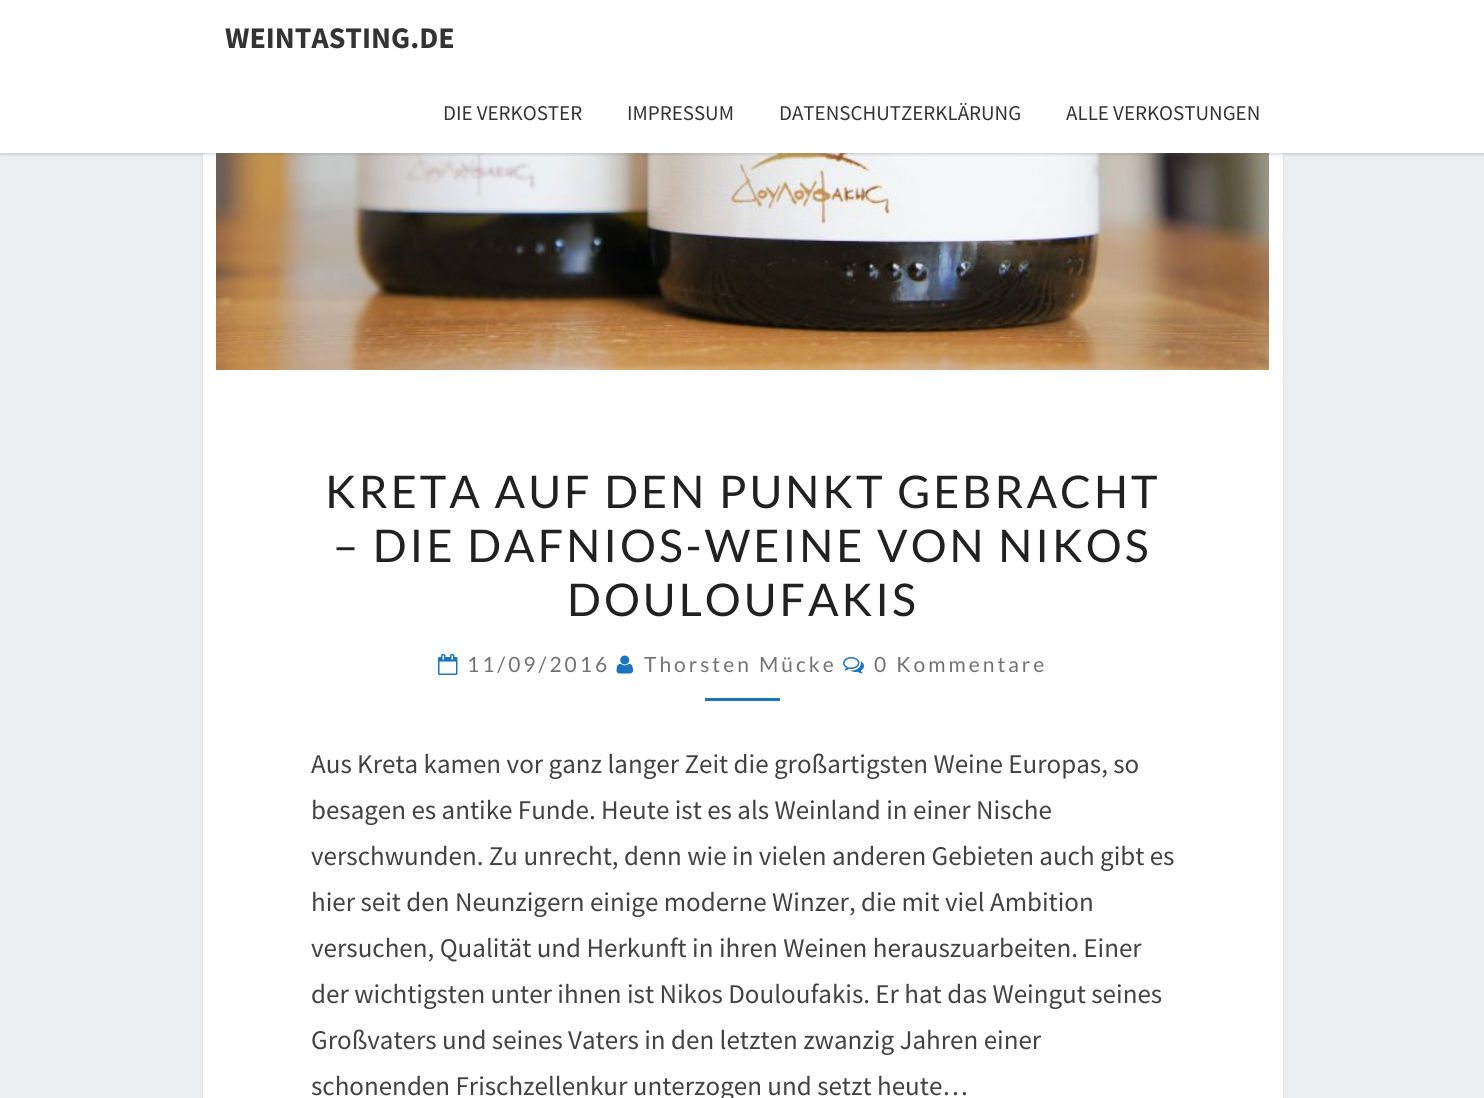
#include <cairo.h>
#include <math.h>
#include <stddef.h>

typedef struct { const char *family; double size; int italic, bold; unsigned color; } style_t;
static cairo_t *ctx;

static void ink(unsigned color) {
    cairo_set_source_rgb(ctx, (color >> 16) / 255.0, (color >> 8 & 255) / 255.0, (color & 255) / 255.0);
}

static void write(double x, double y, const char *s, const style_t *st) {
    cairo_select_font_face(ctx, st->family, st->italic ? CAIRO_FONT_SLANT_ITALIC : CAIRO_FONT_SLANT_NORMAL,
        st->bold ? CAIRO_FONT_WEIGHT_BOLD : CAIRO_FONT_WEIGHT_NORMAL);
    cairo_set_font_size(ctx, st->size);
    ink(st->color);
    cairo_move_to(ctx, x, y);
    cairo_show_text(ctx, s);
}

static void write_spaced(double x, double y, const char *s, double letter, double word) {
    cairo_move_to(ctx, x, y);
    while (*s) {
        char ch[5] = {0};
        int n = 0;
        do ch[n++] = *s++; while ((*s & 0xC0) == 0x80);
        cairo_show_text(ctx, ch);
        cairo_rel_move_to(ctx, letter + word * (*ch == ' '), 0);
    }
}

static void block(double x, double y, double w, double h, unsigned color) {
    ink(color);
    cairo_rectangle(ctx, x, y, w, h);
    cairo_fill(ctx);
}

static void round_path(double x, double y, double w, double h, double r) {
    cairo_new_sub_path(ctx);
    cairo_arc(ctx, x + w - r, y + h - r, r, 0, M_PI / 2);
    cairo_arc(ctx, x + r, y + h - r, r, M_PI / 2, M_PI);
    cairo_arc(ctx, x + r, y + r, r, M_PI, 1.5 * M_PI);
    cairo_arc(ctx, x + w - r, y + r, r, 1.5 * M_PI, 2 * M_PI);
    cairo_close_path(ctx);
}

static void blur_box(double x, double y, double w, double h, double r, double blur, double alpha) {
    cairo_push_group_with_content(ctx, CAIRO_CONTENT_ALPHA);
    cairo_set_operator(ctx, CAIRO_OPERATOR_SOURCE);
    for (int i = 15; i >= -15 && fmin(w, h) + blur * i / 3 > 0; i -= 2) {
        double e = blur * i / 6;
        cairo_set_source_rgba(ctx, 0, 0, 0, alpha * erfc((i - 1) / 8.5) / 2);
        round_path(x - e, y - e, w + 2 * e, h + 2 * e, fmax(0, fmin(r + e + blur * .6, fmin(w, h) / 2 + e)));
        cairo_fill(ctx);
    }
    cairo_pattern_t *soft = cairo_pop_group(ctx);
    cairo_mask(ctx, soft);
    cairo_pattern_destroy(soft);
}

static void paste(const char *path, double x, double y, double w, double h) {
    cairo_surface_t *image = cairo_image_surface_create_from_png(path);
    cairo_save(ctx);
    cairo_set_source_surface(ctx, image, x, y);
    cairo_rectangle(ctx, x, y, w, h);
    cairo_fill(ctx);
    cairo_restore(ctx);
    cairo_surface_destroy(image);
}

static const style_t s1 = {"Source Sans Pro", 30, 0, 1, 0x333333};
static const style_t s2 = {"Source Sans Pro", 21, 0, 0, 0x333333};
static const style_t s3 = {"Source Sans Pro", 27, 0, 0, 0x424242};

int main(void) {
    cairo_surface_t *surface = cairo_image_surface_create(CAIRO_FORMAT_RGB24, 1484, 1098);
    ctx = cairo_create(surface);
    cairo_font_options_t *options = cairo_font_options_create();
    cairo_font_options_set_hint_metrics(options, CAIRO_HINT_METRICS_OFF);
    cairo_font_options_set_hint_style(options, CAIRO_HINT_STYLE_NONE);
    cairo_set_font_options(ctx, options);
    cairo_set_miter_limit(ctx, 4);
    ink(0xeceff1);
    cairo_paint(ctx);
    ink(0x000000);
    blur_box(203, -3, 1080, 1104, 0, 1, 0.15);
    block(203, 153, 1080, 945, 0xffffff);
    paste("pic1.png", 216, 153, 1053, 217);
    ink(0x646464);
    blur_box(0, 2, 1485, 153, 0, 1, 0.2);
    block(0, 0, 1484, 153, 0xffffff);
    write(225, 48, "WEINTASTING.DE", &s1);
    write(443, 120, "DIE VERKOSTER", &s2);
    write(627, 120, "IMPRESSUM", &s2);
    write(779, 120, "DATENSCHUTZERKLÄRUNG", &s2);
    write(1066, 120, "ALLE VERKOSTUNGEN", &s2);
    cairo_select_font_face(ctx, "Lato", CAIRO_FONT_SLANT_NORMAL, CAIRO_FONT_WEIGHT_NORMAL);
    cairo_set_font_size(ctx, 45);
    ink(0x212121);
    write_spaced(325, 508, "KRETA AUF DEN PUNKT GEBRACHT", 3, 0);
    write_spaced(333, 562, "– DIE DAFNIOS-WEINE VON NIKOS", 3, 0);
    write_spaced(567, 616, "DOULOUFAKIS", 3, 0);
    paste("pic2.png", 438, 654, 20, 21);
    cairo_set_font_size(ctx, 21);
    ink(0x727272);
    write_spaced(467, 672, "11/09/2016", 3, 0);
    paste("pic3.png", 616, 655, 17, 19);
    write_spaced(644, 672, "Thorsten Mücke", 3, 0);
    paste("pic4.png", 843, 657, 21, 17);
    write_spaced(874, 672, "0 Kommentare", 3, 0);
    block(705, 698, 75, 3, 0x1e73be);
    write(311, 773, "Aus Kreta kamen vor ganz langer Zeit die großartigsten Weine Europas, so", &s3);
    write(311, 819, "besagen es antike Funde. Heute ist es als Weinland in einer Nische", &s3);
    write(311, 865, "verschwunden. Zu unrecht, denn wie in vielen anderen Gebieten auch gibt es", &s3);
    write(311, 911, "hier seit den Neunzigern einige moderne Winzer, die mit viel Ambition", &s3);
    write(311, 957, "versuchen, Qualität und Herkunft in ihren Weinen herauszuarbeiten. Einer", &s3);
    write(311, 1003, "der wichtigsten unter ihnen ist Nikos Douloufakis. Er hat das Weingut seines", &s3);
    write(311, 1049, "Großvaters und seines Vaters in den letzten zwanzig Jahren einer", &s3);
    write(311, 1095, "schonenden Frischzellenkur unterzogen und setzt heute…", &s3);
    cairo_surface_write_to_png(surface, "screenshot.png");
    cairo_font_options_destroy(options);
    cairo_destroy(ctx);
    cairo_surface_destroy(surface);
    return 0;
}
